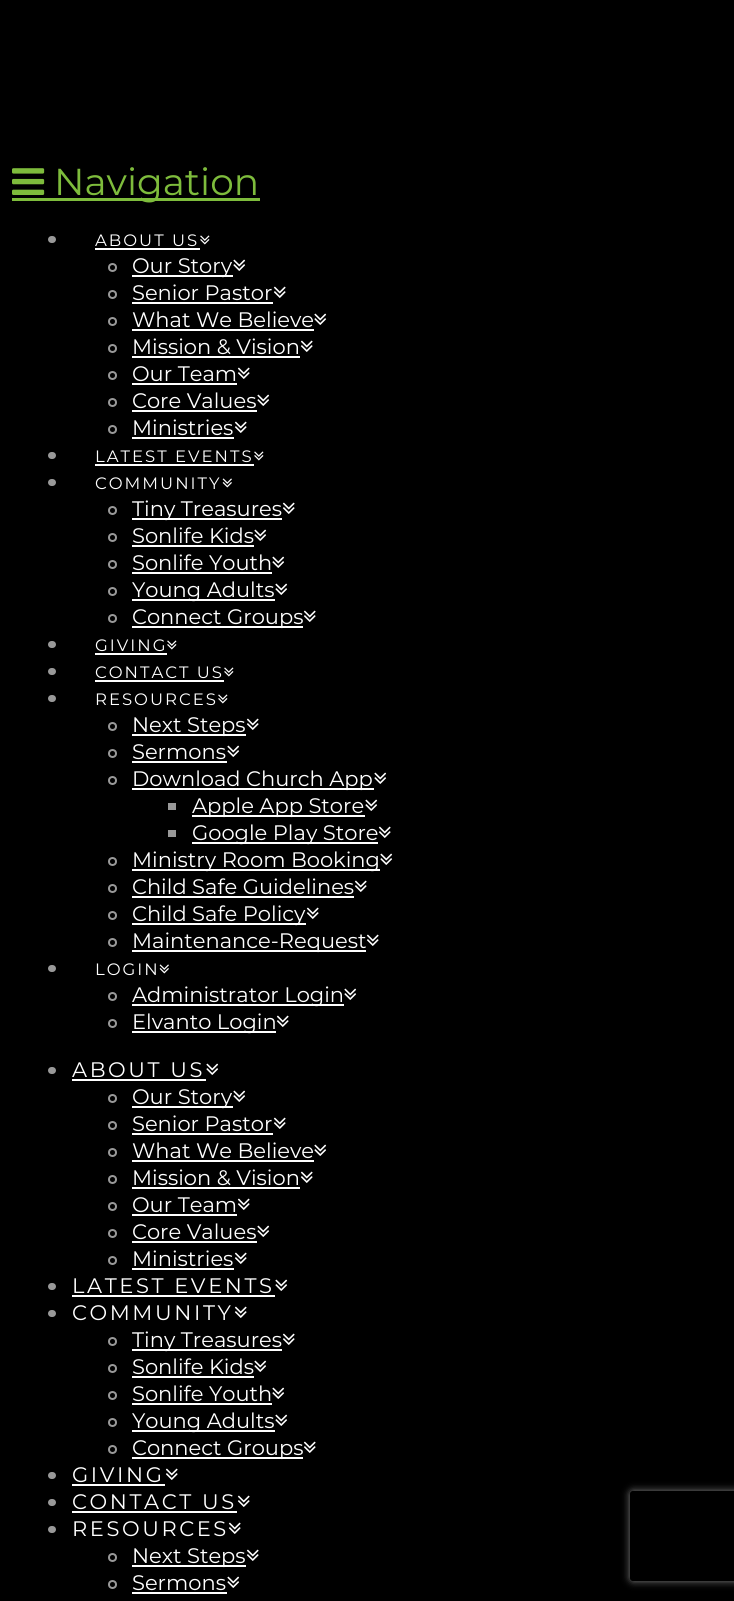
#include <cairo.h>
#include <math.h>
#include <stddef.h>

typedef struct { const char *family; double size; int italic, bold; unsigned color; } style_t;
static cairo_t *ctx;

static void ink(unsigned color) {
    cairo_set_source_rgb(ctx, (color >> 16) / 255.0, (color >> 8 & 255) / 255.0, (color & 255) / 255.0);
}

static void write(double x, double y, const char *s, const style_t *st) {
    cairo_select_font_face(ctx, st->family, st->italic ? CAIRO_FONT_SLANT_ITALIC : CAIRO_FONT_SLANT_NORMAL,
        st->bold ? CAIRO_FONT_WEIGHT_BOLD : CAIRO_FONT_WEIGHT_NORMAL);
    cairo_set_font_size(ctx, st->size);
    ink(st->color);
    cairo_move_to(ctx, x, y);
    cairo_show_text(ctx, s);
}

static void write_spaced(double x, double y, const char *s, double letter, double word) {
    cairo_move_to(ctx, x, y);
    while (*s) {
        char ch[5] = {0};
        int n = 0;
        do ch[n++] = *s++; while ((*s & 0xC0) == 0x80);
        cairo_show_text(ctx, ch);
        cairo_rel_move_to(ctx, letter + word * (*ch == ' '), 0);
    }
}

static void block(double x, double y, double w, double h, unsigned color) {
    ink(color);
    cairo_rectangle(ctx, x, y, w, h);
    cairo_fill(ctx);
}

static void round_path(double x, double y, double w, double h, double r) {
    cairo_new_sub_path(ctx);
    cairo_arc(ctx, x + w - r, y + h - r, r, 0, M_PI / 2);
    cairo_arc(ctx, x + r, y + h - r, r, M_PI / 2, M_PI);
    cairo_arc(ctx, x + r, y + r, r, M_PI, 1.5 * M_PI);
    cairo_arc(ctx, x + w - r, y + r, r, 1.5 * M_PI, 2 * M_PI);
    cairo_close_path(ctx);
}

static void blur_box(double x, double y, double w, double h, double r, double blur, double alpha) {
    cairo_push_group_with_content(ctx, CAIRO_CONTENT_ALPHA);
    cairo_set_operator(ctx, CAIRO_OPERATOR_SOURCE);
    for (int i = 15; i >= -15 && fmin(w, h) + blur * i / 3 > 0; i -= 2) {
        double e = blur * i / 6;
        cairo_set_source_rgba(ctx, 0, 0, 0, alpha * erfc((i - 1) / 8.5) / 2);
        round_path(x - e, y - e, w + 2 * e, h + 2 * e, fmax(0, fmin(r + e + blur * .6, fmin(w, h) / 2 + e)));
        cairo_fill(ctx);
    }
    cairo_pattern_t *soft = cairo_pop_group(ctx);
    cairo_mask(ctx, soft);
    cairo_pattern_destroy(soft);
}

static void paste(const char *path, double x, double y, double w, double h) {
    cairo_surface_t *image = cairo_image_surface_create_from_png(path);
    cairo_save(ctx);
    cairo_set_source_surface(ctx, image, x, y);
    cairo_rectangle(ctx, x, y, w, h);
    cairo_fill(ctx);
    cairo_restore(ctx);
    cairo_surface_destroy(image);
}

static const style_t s1 = {"Montserrat", 37.5, 0, 0, 0x7ebc3c};
static const style_t s2 = {"Montserrat", 21, 0, 0, 0xffffff};

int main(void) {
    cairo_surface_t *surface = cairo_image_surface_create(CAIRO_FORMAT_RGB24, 734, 1601);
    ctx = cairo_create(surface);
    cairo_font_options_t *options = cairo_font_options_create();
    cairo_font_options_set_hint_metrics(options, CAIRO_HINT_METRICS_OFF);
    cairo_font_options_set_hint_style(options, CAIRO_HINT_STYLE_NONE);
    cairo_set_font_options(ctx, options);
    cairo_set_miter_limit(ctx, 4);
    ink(0x000000);
    cairo_paint(ctx);
    block(12, 198, 248, 3, 0x7ebc3c);
    write(54, 195, "Navigation", &s1);
    paste("pic1.png", 12, 168, 33, 27);
    ink(0x999999);
    round_path(48, 236, 8, 7, 3.5);
    cairo_fill(ctx);
    cairo_set_font_size(ctx, 16.5);
    ink(0xffffff);
    write_spaced(95, 246, "ABOUT US", 2, 0);
    block(95, 248, 105, 2, 0xffffff);
    paste("pic2.png", 200, 235, 10, 10);
    cairo_arc(ctx, 112.5, 267.5, 3.5, 0, 2 * M_PI);
    ink(0x999999);
    cairo_stroke(ctx);
    block(132, 275, 101, 2, 0xffffff);
    write(132, 273, "Our Story", &s2);
    paste("pic3.png", 233, 259, 13, 12);
    cairo_arc(ctx, 112.5, 294.5, 3.5, 0, 2 * M_PI);
    ink(0x999999);
    cairo_stroke(ctx);
    write(132, 300, "Senior Pastor", &s2);
    block(132, 302, 141, 2, 0xffffff);
    paste("pic4.png", 273, 286, 13, 12);
    cairo_arc(ctx, 112.5, 321.5, 3.5, 0, 2 * M_PI);
    ink(0x999999);
    cairo_stroke(ctx);
    write(132, 327, "What We Believe", &s2);
    block(132, 329, 182, 2, 0xffffff);
    paste("pic3.png", 314, 313, 13, 12);
    cairo_arc(ctx, 112.5, 348.5, 3.5, 0, 2 * M_PI);
    ink(0x999999);
    cairo_stroke(ctx);
    write(132, 354, "Mission & Vision", &s2);
    block(132, 356, 168, 2, 0xffffff);
    paste("pic4.png", 300, 340, 13, 12);
    cairo_arc(ctx, 112.5, 375.5, 3.5, 0, 2 * M_PI);
    ink(0x999999);
    cairo_stroke(ctx);
    write(132, 381, "Our Team", &s2);
    block(132, 383, 105, 2, 0xffffff);
    paste("pic4.png", 237, 367, 13, 12);
    cairo_arc(ctx, 112.5, 402.5, 3.5, 0, 2 * M_PI);
    ink(0x999999);
    cairo_stroke(ctx);
    write(132, 408, "Core Values", &s2);
    block(132, 410, 125, 2, 0xffffff);
    paste("pic3.png", 257, 394, 13, 12);
    cairo_arc(ctx, 112.5, 429.5, 3.5, 0, 2 * M_PI);
    ink(0x999999);
    cairo_stroke(ctx);
    write(132, 435, "Ministries", &s2);
    block(132, 437, 102, 2, 0xffffff);
    paste("pic4.png", 234, 421, 13, 12);
    ink(0x999999);
    round_path(48, 452, 8, 7, 3.5);
    cairo_fill(ctx);
    cairo_set_font_size(ctx, 16.5);
    ink(0xffffff);
    write_spaced(95, 462, "LATEST EVENTS", 2, 0);
    block(95, 464, 159, 2, 0xffffff);
    paste("pic2.png", 254, 451, 10, 10);
    ink(0x999999);
    round_path(48, 479, 8, 7, 3.5);
    cairo_fill(ctx);
    ink(0xffffff);
    write_spaced(95, 489, "COMMUNITY", 2, 0);
    paste("pic5.png", 222, 478, 10, 10);
    cairo_arc(ctx, 112.5, 510.5, 3.5, 0, 2 * M_PI);
    ink(0x999999);
    cairo_stroke(ctx);
    block(132, 518, 150, 2, 0xffffff);
    write(132, 516, "Tiny Treasures", &s2);
    paste("pic4.png", 282, 502, 13, 12);
    cairo_arc(ctx, 112.5, 537.5, 3.5, 0, 2 * M_PI);
    ink(0x999999);
    cairo_stroke(ctx);
    write(132, 543, "Sonlife Kids", &s2);
    block(132, 545, 122, 2, 0xffffff);
    paste("pic3.png", 254, 529, 13, 12);
    cairo_arc(ctx, 112.5, 564.5, 3.5, 0, 2 * M_PI);
    ink(0x999999);
    cairo_stroke(ctx);
    write(132, 570, "Sonlife Youth", &s2);
    block(132, 572, 140, 2, 0xffffff);
    paste("pic3.png", 272, 556, 13, 12);
    cairo_arc(ctx, 112.5, 591.5, 3.5, 0, 2 * M_PI);
    ink(0x999999);
    cairo_stroke(ctx);
    block(132, 599, 143, 2, 0xffffff);
    write(132, 597, "Young Adults", &s2);
    paste("pic3.png", 275, 583, 13, 12);
    cairo_arc(ctx, 112.5, 618.5, 3.5, 0, 2 * M_PI);
    ink(0x999999);
    cairo_stroke(ctx);
    block(132, 626, 171, 2, 0xffffff);
    write(132, 624, "Connect Groups", &s2);
    paste("pic4.png", 303, 610, 13, 12);
    ink(0x999999);
    round_path(48, 641, 8, 7, 3.5);
    cairo_fill(ctx);
    cairo_set_font_size(ctx, 16.5);
    ink(0xffffff);
    write_spaced(95, 651, "GIVING", 2, 0);
    block(95, 653, 72, 2, 0xffffff);
    paste("pic2.png", 167, 640, 10, 10);
    ink(0x999999);
    round_path(48, 668, 8, 7, 3.5);
    cairo_fill(ctx);
    ink(0xffffff);
    write_spaced(95, 678, "CONTACT US", 2, 0);
    block(95, 680, 129, 2, 0xffffff);
    paste("pic2.png", 224, 667, 10, 10);
    ink(0x999999);
    round_path(48, 695, 8, 7, 3.5);
    cairo_fill(ctx);
    ink(0xffffff);
    write_spaced(95, 705, "RESOURCES", 2, 0);
    paste("pic2.png", 218, 694, 10, 10);
    cairo_arc(ctx, 112.5, 726.5, 3.5, 0, 2 * M_PI);
    ink(0x999999);
    cairo_stroke(ctx);
    block(132, 734, 114, 2, 0xffffff);
    write(132, 732, "Next Steps", &s2);
    paste("pic4.png", 246, 718, 13, 12);
    cairo_arc(ctx, 112.5, 753.5, 3.5, 0, 2 * M_PI);
    ink(0x999999);
    cairo_stroke(ctx);
    write(132, 759, "Sermons", &s2);
    block(132, 761, 95, 2, 0xffffff);
    paste("pic3.png", 227, 745, 13, 12);
    cairo_arc(ctx, 112.5, 780.5, 3.5, 0, 2 * M_PI);
    ink(0x999999);
    cairo_stroke(ctx);
    block(132, 788, 242, 2, 0xffffff);
    write(132, 786, "Download Church App", &s2);
    paste("pic3.png", 374, 772, 13, 12);
    block(168, 803, 8, 7, 0x999999);
    block(192, 815, 173, 2, 0xffffff);
    write(192, 813, "Apple App Store", &s2);
    paste("pic3.png", 365, 799, 13, 12);
    block(168, 830, 8, 7, 0x999999);
    block(192, 842, 186, 2, 0xffffff);
    write(192, 840, "Google Play Store", &s2);
    paste("pic4.png", 378, 826, 13, 12);
    cairo_arc(ctx, 112.5, 861.5, 3.5, 0, 2 * M_PI);
    ink(0x999999);
    cairo_stroke(ctx);
    block(132, 869, 248, 2, 0xffffff);
    write(132, 867, "Ministry Room Booking", &s2);
    paste("pic3.png", 380, 853, 13, 12);
    cairo_arc(ctx, 112.5, 888.5, 3.5, 0, 2 * M_PI);
    ink(0x999999);
    cairo_stroke(ctx);
    write(132, 894, "Child Safe Guidelines", &s2);
    block(132, 896, 222, 2, 0xffffff);
    paste("pic4.png", 354, 880, 13, 12);
    cairo_arc(ctx, 112.5, 915.5, 3.5, 0, 2 * M_PI);
    ink(0x999999);
    cairo_stroke(ctx);
    block(132, 923, 174, 2, 0xffffff);
    write(132, 921, "Child Safe Policy", &s2);
    paste("pic4.png", 306, 907, 13, 12);
    cairo_arc(ctx, 112.5, 942.5, 3.5, 0, 2 * M_PI);
    ink(0x999999);
    cairo_stroke(ctx);
    block(132, 950, 234, 2, 0xffffff);
    write(132, 948, "Maintenance-Request", &s2);
    paste("pic4.png", 366, 934, 13, 12);
    ink(0x999999);
    round_path(48, 965, 8, 7, 3.5);
    cairo_fill(ctx);
    cairo_set_font_size(ctx, 16.5);
    ink(0xffffff);
    write_spaced(95, 975, "LOGIN", 2, 0);
    paste("pic5.png", 159, 964, 10, 10);
    cairo_arc(ctx, 112.5, 996.5, 3.5, 0, 2 * M_PI);
    ink(0x999999);
    cairo_stroke(ctx);
    block(132, 1004, 212, 2, 0xffffff);
    write(132, 1002, "Administrator Login", &s2);
    paste("pic3.png", 344, 988, 13, 12);
    cairo_arc(ctx, 112.5, 1023.5, 3.5, 0, 2 * M_PI);
    ink(0x999999);
    cairo_stroke(ctx);
    block(132, 1031, 144, 2, 0xffffff);
    write(132, 1029, "Elvanto Login", &s2);
    paste("pic4.png", 276, 1015, 13, 12);
    ink(0x999999);
    round_path(48, 1067, 8, 7, 3.5);
    cairo_fill(ctx);
    ink(0xffffff);
    write_spaced(72, 1077, "ABOUT US", 2.6, 0);
    block(72, 1079, 134, 2, 0xffffff);
    paste("pic3.png", 206, 1063, 13, 12);
    cairo_arc(ctx, 112.5, 1098.5, 3.5, 0, 2 * M_PI);
    ink(0x999999);
    cairo_stroke(ctx);
    block(132, 1106, 101, 2, 0xffffff);
    write(132, 1104, "Our Story", &s2);
    paste("pic3.png", 233, 1090, 13, 12);
    cairo_arc(ctx, 112.5, 1125.5, 3.5, 0, 2 * M_PI);
    ink(0x999999);
    cairo_stroke(ctx);
    write(132, 1131, "Senior Pastor", &s2);
    block(132, 1133, 141, 2, 0xffffff);
    paste("pic4.png", 273, 1117, 13, 12);
    cairo_arc(ctx, 112.5, 1152.5, 3.5, 0, 2 * M_PI);
    ink(0x999999);
    cairo_stroke(ctx);
    write(132, 1158, "What We Believe", &s2);
    block(132, 1160, 182, 2, 0xffffff);
    paste("pic3.png", 314, 1144, 13, 12);
    cairo_arc(ctx, 112.5, 1179.5, 3.5, 0, 2 * M_PI);
    ink(0x999999);
    cairo_stroke(ctx);
    write(132, 1185, "Mission & Vision", &s2);
    block(132, 1187, 168, 2, 0xffffff);
    paste("pic4.png", 300, 1171, 13, 12);
    cairo_arc(ctx, 112.5, 1206.5, 3.5, 0, 2 * M_PI);
    ink(0x999999);
    cairo_stroke(ctx);
    write(132, 1212, "Our Team", &s2);
    block(132, 1214, 105, 2, 0xffffff);
    paste("pic4.png", 237, 1198, 13, 12);
    cairo_arc(ctx, 112.5, 1233.5, 3.5, 0, 2 * M_PI);
    ink(0x999999);
    cairo_stroke(ctx);
    write(132, 1239, "Core Values", &s2);
    block(132, 1241, 125, 2, 0xffffff);
    paste("pic3.png", 257, 1225, 13, 12);
    cairo_arc(ctx, 112.5, 1260.5, 3.5, 0, 2 * M_PI);
    ink(0x999999);
    cairo_stroke(ctx);
    write(132, 1266, "Ministries", &s2);
    block(132, 1268, 102, 2, 0xffffff);
    paste("pic4.png", 234, 1252, 13, 12);
    ink(0x999999);
    round_path(48, 1283, 8, 7, 3.5);
    cairo_fill(ctx);
    ink(0xffffff);
    write_spaced(72, 1293, "LATEST EVENTS", 2.6, 0);
    block(72, 1295, 203, 2, 0xffffff);
    paste("pic3.png", 275, 1279, 13, 12);
    ink(0x999999);
    round_path(48, 1310, 8, 7, 3.5);
    cairo_fill(ctx);
    ink(0xffffff);
    write_spaced(72, 1320, "COMMUNITY", 2.6, 0);
    paste("pic4.png", 234, 1306, 13, 12);
    cairo_arc(ctx, 112.5, 1341.5, 3.5, 0, 2 * M_PI);
    ink(0x999999);
    cairo_stroke(ctx);
    block(132, 1349, 150, 2, 0xffffff);
    write(132, 1347, "Tiny Treasures", &s2);
    paste("pic4.png", 282, 1333, 13, 12);
    cairo_arc(ctx, 112.5, 1368.5, 3.5, 0, 2 * M_PI);
    ink(0x999999);
    cairo_stroke(ctx);
    write(132, 1374, "Sonlife Kids", &s2);
    block(132, 1376, 122, 2, 0xffffff);
    paste("pic3.png", 254, 1360, 13, 12);
    cairo_arc(ctx, 112.5, 1395.5, 3.5, 0, 2 * M_PI);
    ink(0x999999);
    cairo_stroke(ctx);
    write(132, 1401, "Sonlife Youth", &s2);
    block(132, 1403, 140, 2, 0xffffff);
    paste("pic3.png", 272, 1387, 13, 12);
    cairo_arc(ctx, 112.5, 1422.5, 3.5, 0, 2 * M_PI);
    ink(0x999999);
    cairo_stroke(ctx);
    block(132, 1430, 143, 2, 0xffffff);
    write(132, 1428, "Young Adults", &s2);
    paste("pic3.png", 275, 1414, 13, 12);
    cairo_arc(ctx, 112.5, 1449.5, 3.5, 0, 2 * M_PI);
    ink(0x999999);
    cairo_stroke(ctx);
    block(132, 1457, 171, 2, 0xffffff);
    write(132, 1455, "Connect Groups", &s2);
    paste("pic4.png", 303, 1441, 13, 12);
    ink(0x999999);
    round_path(48, 1472, 8, 7, 3.5);
    cairo_fill(ctx);
    ink(0xffffff);
    write_spaced(72, 1482, "GIVING", 2.6, 0);
    block(72, 1484, 93, 2, 0xffffff);
    paste("pic4.png", 165, 1468, 13, 12);
    ink(0x999999);
    round_path(48, 1499, 8, 7, 3.5);
    cairo_fill(ctx);
    ink(0xffffff);
    write_spaced(72, 1509, "CONTACT US", 2.6, 0);
    block(72, 1511, 165, 2, 0xffffff);
    paste("pic4.png", 237, 1495, 13, 12);
    ink(0x999999);
    round_path(48, 1526, 8, 7, 3.5);
    cairo_fill(ctx);
    ink(0xffffff);
    write_spaced(72, 1536, "RESOURCES", 2.6, 0);
    paste("pic4.png", 228, 1522, 13, 12);
    cairo_arc(ctx, 112.5, 1557.5, 3.5, 0, 2 * M_PI);
    ink(0x999999);
    cairo_stroke(ctx);
    block(132, 1565, 114, 2, 0xffffff);
    write(132, 1563, "Next Steps", &s2);
    paste("pic4.png", 246, 1549, 13, 12);
    cairo_arc(ctx, 112.5, 1584.5, 3.5, 0, 2 * M_PI);
    ink(0x999999);
    cairo_stroke(ctx);
    write(132, 1590, "Sermons", &s2);
    block(132, 1592, 95, 2, 0xffffff);
    paste("pic3.png", 227, 1576, 13, 12);
    cairo_save(ctx);
    cairo_set_fill_rule(ctx, CAIRO_FILL_RULE_EVEN_ODD);
    cairo_new_path(ctx);
    cairo_move_to(ctx, 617, 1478);
    cairo_line_to(ctx, 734, 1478);
    cairo_line_to(ctx, 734, 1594);
    cairo_line_to(ctx, 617, 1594);
    cairo_close_path(ctx);
    cairo_move_to(ctx, 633, 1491);
    cairo_line_to(ctx, 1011, 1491);
    cairo_curve_to(ctx, 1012.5, 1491, 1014, 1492.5, 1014, 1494);
    cairo_line_to(ctx, 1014, 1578);
    cairo_curve_to(ctx, 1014, 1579.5, 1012.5, 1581, 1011, 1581);
    cairo_line_to(ctx, 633, 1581);
    cairo_curve_to(ctx, 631.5, 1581, 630, 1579.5, 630, 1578);
    cairo_line_to(ctx, 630, 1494);
    cairo_curve_to(ctx, 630, 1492.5, 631.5, 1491, 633, 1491);
    cairo_close_path(ctx);
    cairo_clip(ctx);
    ink(0x808080);
    blur_box(630, 1491, 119, 90, 3, 4, 1);
    cairo_restore(ctx);
    cairo_surface_write_to_png(surface, "screenshot.png");
    cairo_font_options_destroy(options);
    cairo_destroy(ctx);
    cairo_surface_destroy(surface);
    return 0;
}
